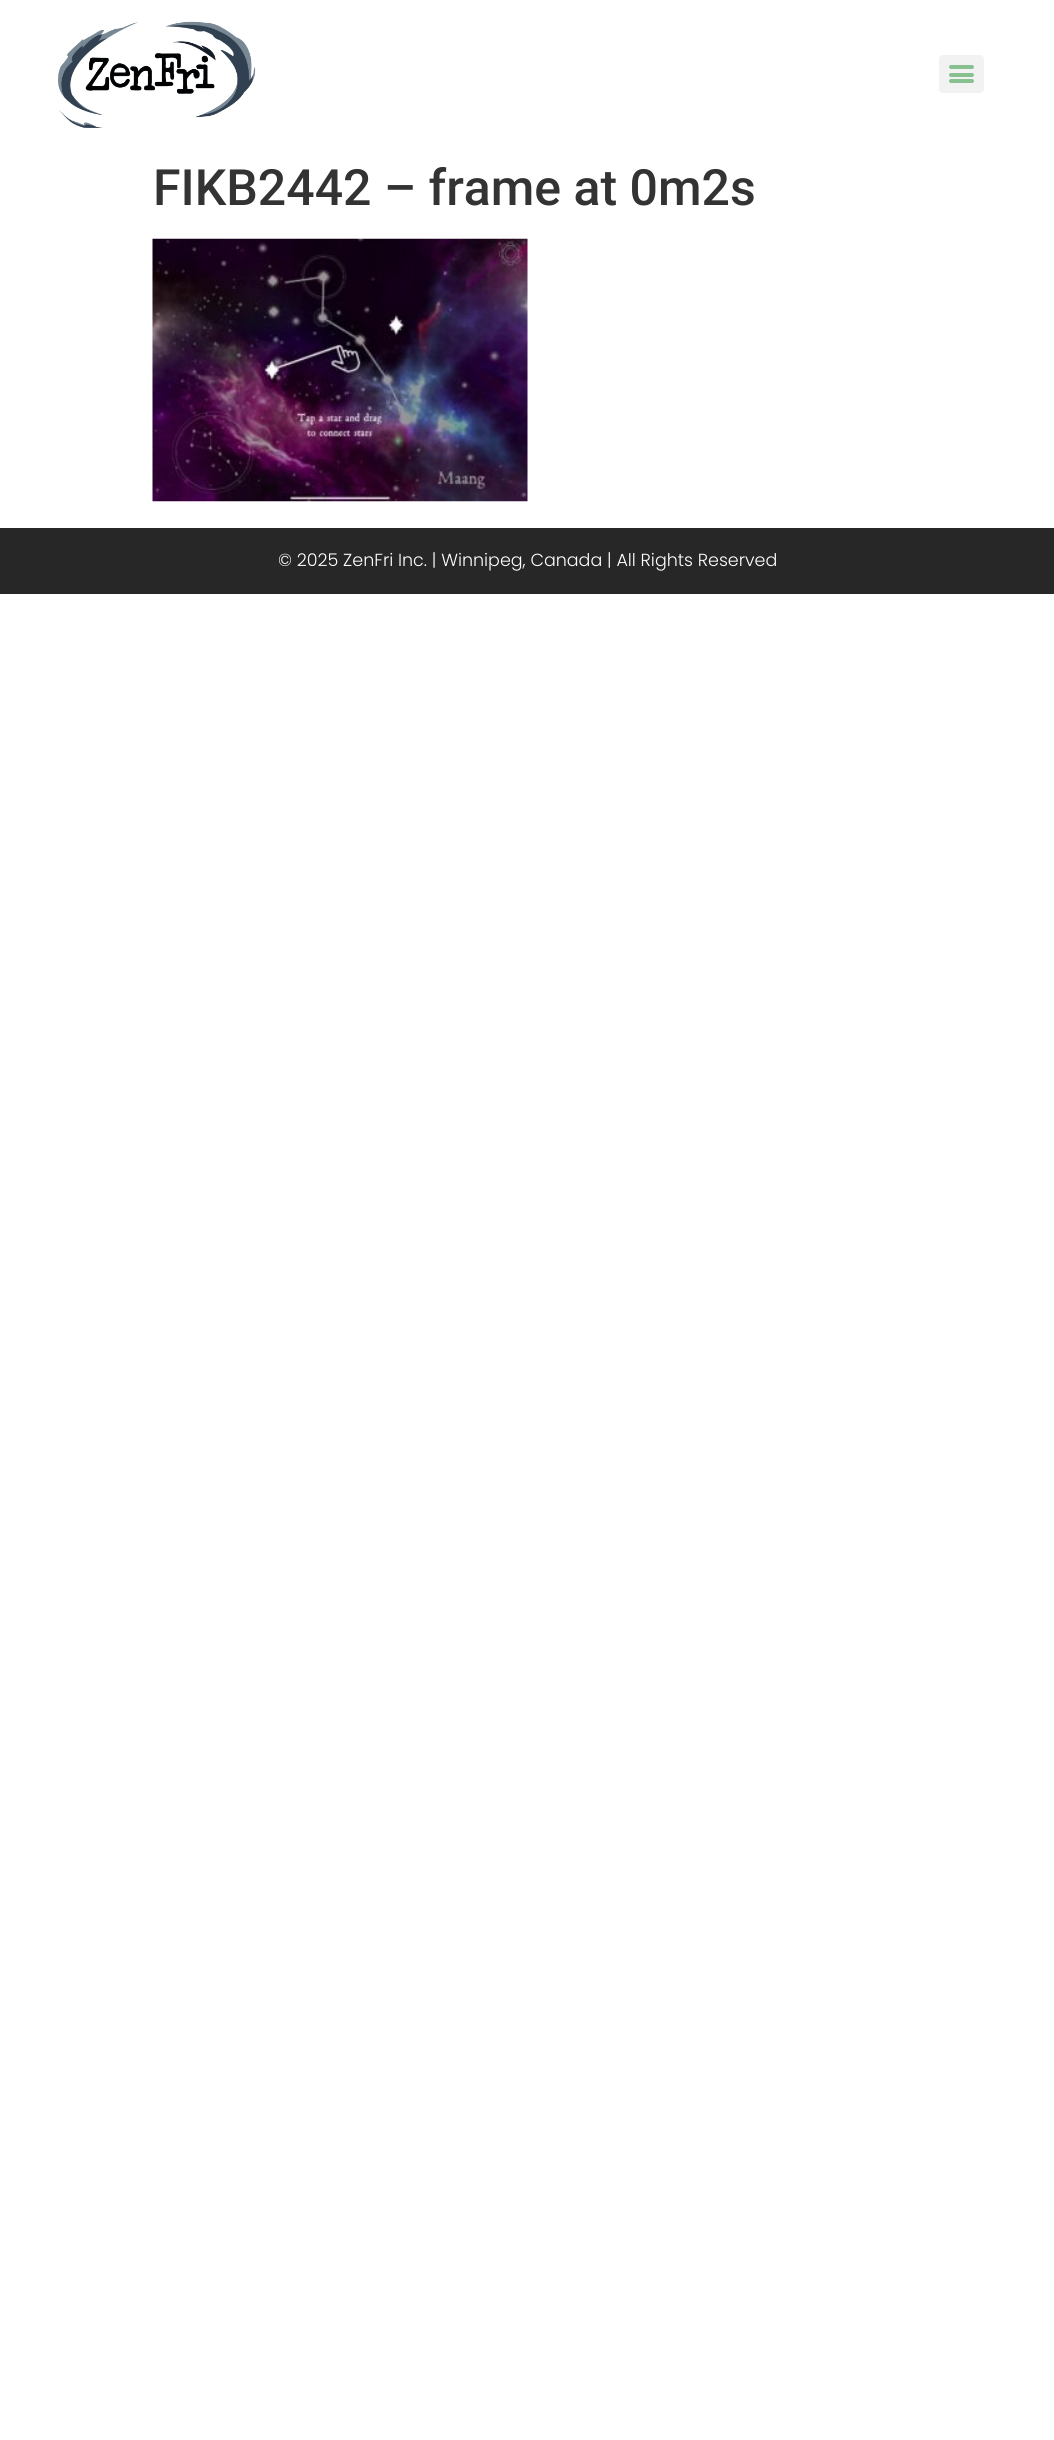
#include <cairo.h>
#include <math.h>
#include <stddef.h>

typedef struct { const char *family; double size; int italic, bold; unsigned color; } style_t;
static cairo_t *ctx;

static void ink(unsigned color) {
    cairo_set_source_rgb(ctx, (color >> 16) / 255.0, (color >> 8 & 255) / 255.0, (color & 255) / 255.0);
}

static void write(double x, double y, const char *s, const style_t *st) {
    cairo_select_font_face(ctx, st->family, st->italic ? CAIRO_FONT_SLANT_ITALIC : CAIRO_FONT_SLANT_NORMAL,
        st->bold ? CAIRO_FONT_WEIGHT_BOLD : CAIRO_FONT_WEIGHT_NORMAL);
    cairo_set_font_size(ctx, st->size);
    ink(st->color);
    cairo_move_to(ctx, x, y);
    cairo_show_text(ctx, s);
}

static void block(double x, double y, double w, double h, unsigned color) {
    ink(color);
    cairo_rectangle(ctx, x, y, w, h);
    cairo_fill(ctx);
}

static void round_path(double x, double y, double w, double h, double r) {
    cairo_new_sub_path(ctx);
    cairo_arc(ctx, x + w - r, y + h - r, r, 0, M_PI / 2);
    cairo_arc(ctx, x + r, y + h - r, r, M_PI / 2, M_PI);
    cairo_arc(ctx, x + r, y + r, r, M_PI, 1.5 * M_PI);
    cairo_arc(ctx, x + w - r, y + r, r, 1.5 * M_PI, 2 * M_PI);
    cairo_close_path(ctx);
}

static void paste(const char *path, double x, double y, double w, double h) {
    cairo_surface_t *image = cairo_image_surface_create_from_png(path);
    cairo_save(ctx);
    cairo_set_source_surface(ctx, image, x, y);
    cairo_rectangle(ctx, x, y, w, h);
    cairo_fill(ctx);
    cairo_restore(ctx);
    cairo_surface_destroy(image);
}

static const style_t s1 = {"Roboto Medium", 50, 0, 0, 0x333333};
static const style_t s2 = {"Poppins Light", 17.5, 0, 0, 0xffffff};

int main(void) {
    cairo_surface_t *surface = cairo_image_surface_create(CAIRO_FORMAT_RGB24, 1054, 2440);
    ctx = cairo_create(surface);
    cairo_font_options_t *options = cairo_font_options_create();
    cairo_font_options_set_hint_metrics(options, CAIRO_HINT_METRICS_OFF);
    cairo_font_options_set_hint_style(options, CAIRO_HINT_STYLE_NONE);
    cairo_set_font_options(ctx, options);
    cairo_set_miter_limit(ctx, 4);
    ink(0xffffff);
    cairo_paint(ctx);
    paste("pic1.png", 58, 21, 198, 107);
    ink(0xf2f2f2);
    round_path(939, 55, 45, 38, 4);
    cairo_fill(ctx);
    ink(0x88c18f);
    round_path(949, 73, 25, 4, 2);
    cairo_fill(ctx);
    round_path(949, 65, 25, 4, 2);
    cairo_fill(ctx);
    round_path(949, 79, 25, 4, 2);
    cairo_fill(ctx);
    write(153, 205, "FIKB2442 – frame at 0m2s", &s1);
    paste("pic2.png", 152, 238, 376, 264);
    block(0, 528, 1054, 66, 0x272727);
    write(278, 566, "© 2025 ZenFri Inc. | Winnipeg, Canada | All Rights Reserved", &s2);
    cairo_surface_write_to_png(surface, "screenshot.png");
    cairo_font_options_destroy(options);
    cairo_destroy(ctx);
    cairo_surface_destroy(surface);
    return 0;
}
